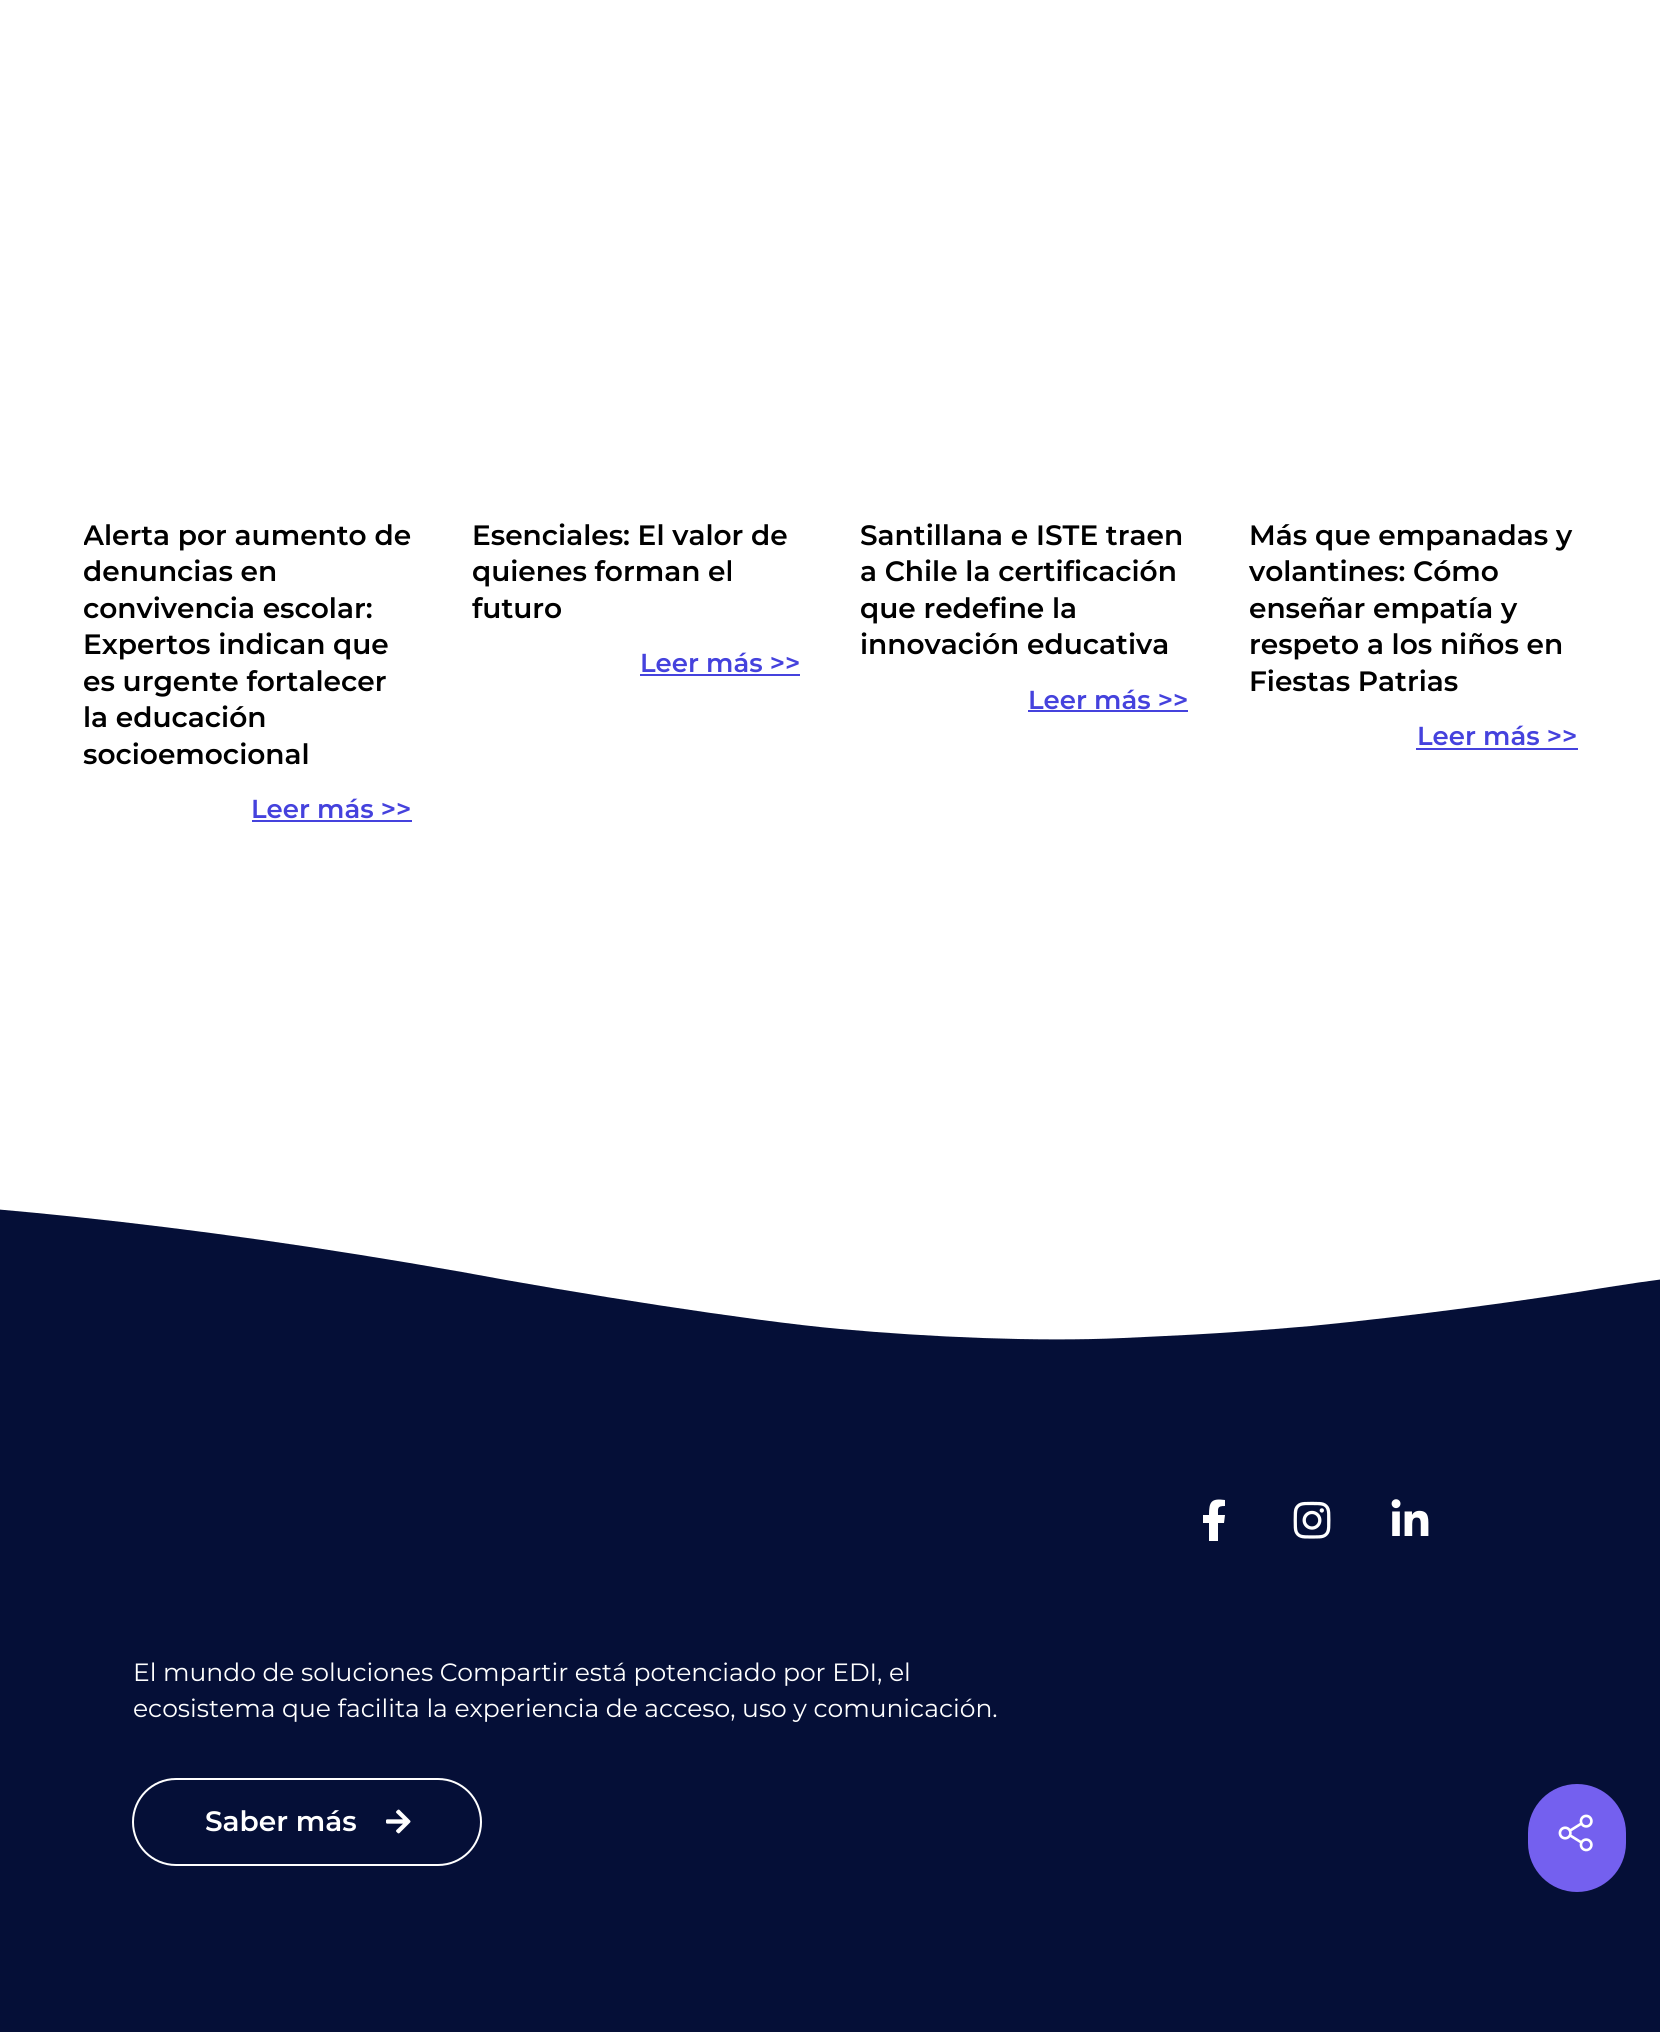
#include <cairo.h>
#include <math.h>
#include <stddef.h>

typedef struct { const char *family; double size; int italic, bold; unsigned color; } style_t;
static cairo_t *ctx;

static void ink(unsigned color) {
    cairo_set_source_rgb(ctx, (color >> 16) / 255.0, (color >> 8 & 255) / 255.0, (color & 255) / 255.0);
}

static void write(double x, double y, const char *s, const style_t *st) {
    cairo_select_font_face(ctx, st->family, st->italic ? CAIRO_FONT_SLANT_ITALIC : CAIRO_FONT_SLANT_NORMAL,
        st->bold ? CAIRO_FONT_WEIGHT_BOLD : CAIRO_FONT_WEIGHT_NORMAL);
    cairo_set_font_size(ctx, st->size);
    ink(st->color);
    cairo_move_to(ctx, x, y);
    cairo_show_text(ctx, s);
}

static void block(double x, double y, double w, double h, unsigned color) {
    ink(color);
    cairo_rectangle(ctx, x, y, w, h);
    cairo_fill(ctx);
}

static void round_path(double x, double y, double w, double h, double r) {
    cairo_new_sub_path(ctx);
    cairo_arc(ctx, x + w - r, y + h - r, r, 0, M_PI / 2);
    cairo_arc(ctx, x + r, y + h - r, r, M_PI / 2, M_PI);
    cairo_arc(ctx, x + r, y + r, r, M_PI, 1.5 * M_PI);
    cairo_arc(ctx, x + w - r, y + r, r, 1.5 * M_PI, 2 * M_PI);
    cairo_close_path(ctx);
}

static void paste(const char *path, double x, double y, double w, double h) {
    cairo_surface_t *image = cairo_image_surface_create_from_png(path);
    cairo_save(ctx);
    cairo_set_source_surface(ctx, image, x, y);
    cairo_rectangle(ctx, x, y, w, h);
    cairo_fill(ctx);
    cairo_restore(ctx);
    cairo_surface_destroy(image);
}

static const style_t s1 = {"Montserrat SemiBold", 28, 0, 0, 0x000000};
static const style_t s2 = {"Montserrat SemiBold", 26, 0, 0, 0x4542dd};
static const style_t s3 = {"Montserrat", 25, 0, 0, 0xffffff};
static const style_t s4 = {"Montserrat SemiBold", 28, 0, 0, 0xffffff};

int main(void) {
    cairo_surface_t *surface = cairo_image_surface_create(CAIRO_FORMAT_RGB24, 1660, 2032);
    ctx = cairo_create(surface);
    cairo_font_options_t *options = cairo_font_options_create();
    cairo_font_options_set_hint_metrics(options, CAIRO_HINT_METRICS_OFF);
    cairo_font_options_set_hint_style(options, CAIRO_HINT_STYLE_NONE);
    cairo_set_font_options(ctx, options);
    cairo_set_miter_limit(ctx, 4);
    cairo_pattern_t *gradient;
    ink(0xffffff);
    cairo_paint(ctx);
    cairo_save(ctx);
    cairo_rectangle(ctx, 84, 54, 328, 776);
    cairo_clip(ctx);
    write(83, 545, "Alerta por aumento de", &s1);
    cairo_restore(ctx);
    write(83, 581, "denuncias en", &s1);
    write(83, 618, "convivencia escolar:", &s1);
    write(83, 654, "Expertos indican que", &s1);
    write(83, 691, "es urgente fortalecer", &s1);
    write(83, 727, "la educación", &s1);
    write(83, 764, "socioemocional", &s1);
    write(251, 818, "Leer más >>", &s2);
    block(252, 820, 160, 2, 0x4542dd);
    write(472, 545, "Esenciales: El valor de", &s1);
    write(472, 581, "quienes forman el", &s1);
    cairo_save(ctx);
    cairo_rectangle(ctx, 472, 54, 328, 630);
    cairo_clip(ctx);
    write(472, 618, "futuro", &s1);
    cairo_restore(ctx);
    write(640, 672, "Leer más >>", &s2);
    block(640, 674, 160, 2, 0x4542dd);
    write(860, 545, "Santillana e ISTE traen", &s1);
    write(860, 581, "a Chile la certificación", &s1);
    write(860, 618, "que redefine la", &s1);
    write(860, 654, "innovación educativa", &s1);
    write(1028, 709, "Leer más >>", &s2);
    block(1028, 710, 160, 2, 0x4542dd);
    write(1249, 545, "Más que empanadas y", &s1);
    write(1249, 581, "volantines: Cómo", &s1);
    write(1249, 618, "enseñar empatía y", &s1);
    write(1249, 654, "respeto a los niños en", &s1);
    write(1249, 691, "Fiestas Patrias", &s1);
    write(1417, 745, "Leer más >>", &s2);
    block(1416, 748, 162, 2, 0x4542dd);
    block(0, 1209, 1660, 823, 0x050f37);
    cairo_save(ctx);
    cairo_rectangle(ctx, 0, 1184, 1660, 158);
    cairo_clip(ctx);
    ink(0xffffff);
    cairo_new_path(ctx);
    cairo_move_to(ctx, -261, 1193);
    cairo_curve_to(ctx, -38, 1202, 178, 1222, 462, 1272);
    cairo_curve_to(ctx, 574, 1293, 751, 1321, 840, 1329);
    cairo_curve_to(ctx, 928, 1337, 1037, 1342, 1123, 1338);
    cairo_curve_to(ctx, 1161, 1336, 1208, 1335, 1311, 1326);
    cairo_curve_to(ctx, 1413, 1316, 1530, 1300, 1609, 1287);
    cairo_curve_to(ctx, 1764, 1262, 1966, 1252, 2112, 1251);
    cairo_curve_to(ctx, 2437, 1249, 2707, 1300, 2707, 1300);
    cairo_line_to(ctx, 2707, 1183);
    cairo_line_to(ctx, -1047, 1183);
    cairo_line_to(ctx, -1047, 1237);
    cairo_curve_to(ctx, -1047, 1237, -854, 1207, -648, 1197);
    cairo_curve_to(ctx, -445, 1187, -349, 1190, -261, 1193);
    cairo_close_path(ctx);
    cairo_fill(ctx);
    cairo_restore(ctx);
    ink(0xffffff);
    cairo_new_path(ctx);
    cairo_move_to(ctx, 1224, 1523);
    cairo_line_to(ctx, 1218, 1523);
    cairo_line_to(ctx, 1218, 1541);
    cairo_line_to(ctx, 1209, 1541);
    cairo_line_to(ctx, 1209, 1523);
    cairo_line_to(ctx, 1203, 1523);
    cairo_line_to(ctx, 1203, 1515);
    cairo_line_to(ctx, 1209, 1515);
    cairo_curve_to(ctx, 1209, 1502, 1211, 1498, 1225, 1500);
    cairo_line_to(ctx, 1225, 1506);
    cairo_curve_to(ctx, 1217, 1506, 1218, 1508, 1218, 1515);
    cairo_line_to(ctx, 1225, 1515);
    cairo_close_path(ctx);
    cairo_fill(ctx);
    paste("pic1.png", 1293, 1501, 38, 38);
    paste("pic2.png", 1391, 1499, 38, 37);
    write(133, 1681, "El mundo de soluciones Compartir está potenciado por EDI, el", &s3);
    write(133, 1717, "ecosistema que facilita la experiencia de acceso, uso y comunicación.", &s3);
    cairo_save(ctx);
    round_path(132, 1778, 350, 88, 44);
    cairo_clip(ctx);
    gradient = cairo_pattern_create_linear(134, 1822, 1172, 1822);
    cairo_pattern_add_color_stop_rgba(gradient, 0, 0.02, 0.059, 0.216, 1);
    cairo_pattern_add_color_stop_rgba(gradient, 0.33, 0.02, 0.059, 0.216, 1);
    cairo_pattern_add_color_stop_rgba(gradient, 0.67, 0.455, 0.376, 0.937, 1);
    cairo_pattern_add_color_stop_rgba(gradient, 1, 0.455, 0.376, 0.937, 1);
    cairo_set_source(ctx, gradient);
    cairo_pattern_destroy(gradient);
    cairo_new_path(ctx);
    cairo_move_to(ctx, 134, 1778);
    cairo_line_to(ctx, 438, 1778);
    cairo_curve_to(ctx, 462.5, 1778, 482, 1797.5, 482, 1822);
    cairo_curve_to(ctx, 482, 1846.5, 462.5, 1866, 438, 1866);
    cairo_line_to(ctx, 134, 1866);
    cairo_close_path(ctx);
    cairo_fill(ctx);
    cairo_restore(ctx);
    round_path(133, 1779, 348, 86, 43);
    cairo_stroke(ctx);
    write(205, 1831, "Saber más", &s4);
    paste("pic3.png", 386, 1809, 25, 25);
    ink(0x7460ef);
    round_path(1528, 1784, 98, 108, 49);
    cairo_fill(ctx);
    paste("pic4.png", 1558, 1814, 35, 38);
    cairo_surface_write_to_png(surface, "screenshot.png");
    cairo_font_options_destroy(options);
    cairo_destroy(ctx);
    cairo_surface_destroy(surface);
    return 0;
}
